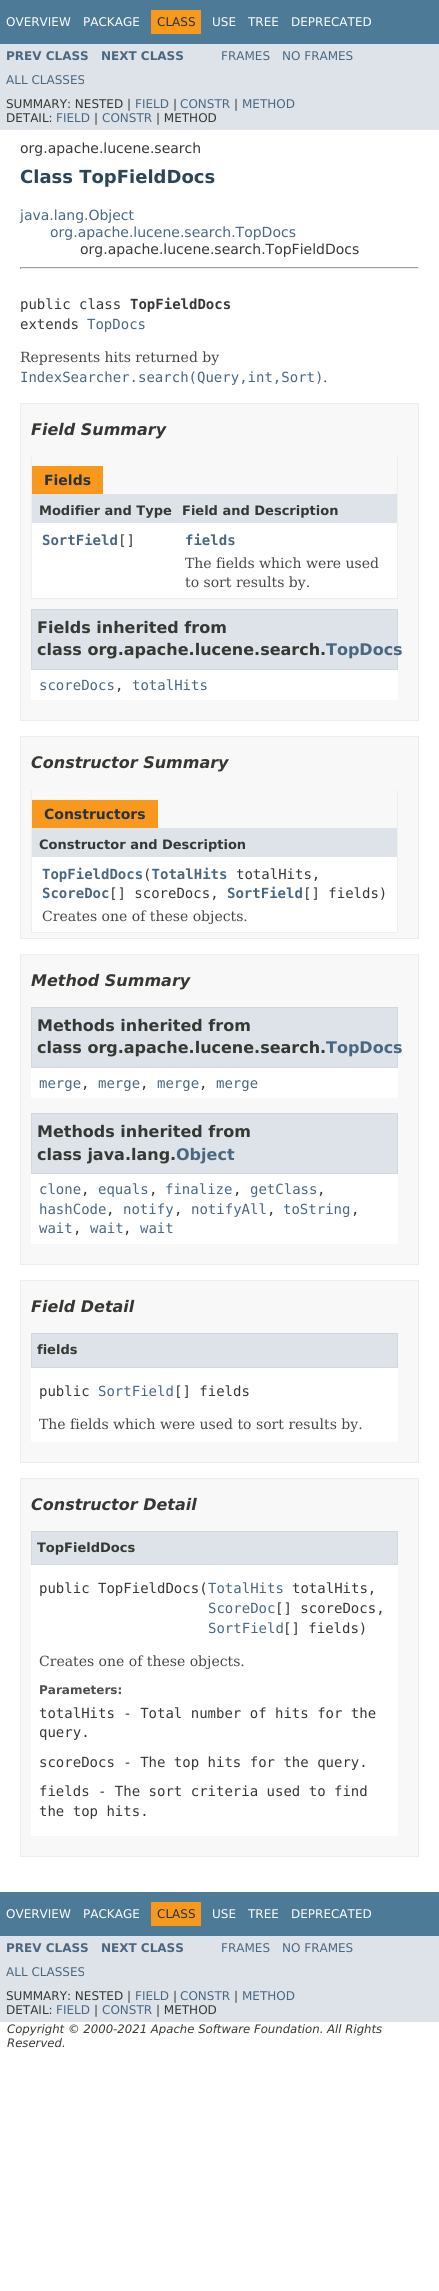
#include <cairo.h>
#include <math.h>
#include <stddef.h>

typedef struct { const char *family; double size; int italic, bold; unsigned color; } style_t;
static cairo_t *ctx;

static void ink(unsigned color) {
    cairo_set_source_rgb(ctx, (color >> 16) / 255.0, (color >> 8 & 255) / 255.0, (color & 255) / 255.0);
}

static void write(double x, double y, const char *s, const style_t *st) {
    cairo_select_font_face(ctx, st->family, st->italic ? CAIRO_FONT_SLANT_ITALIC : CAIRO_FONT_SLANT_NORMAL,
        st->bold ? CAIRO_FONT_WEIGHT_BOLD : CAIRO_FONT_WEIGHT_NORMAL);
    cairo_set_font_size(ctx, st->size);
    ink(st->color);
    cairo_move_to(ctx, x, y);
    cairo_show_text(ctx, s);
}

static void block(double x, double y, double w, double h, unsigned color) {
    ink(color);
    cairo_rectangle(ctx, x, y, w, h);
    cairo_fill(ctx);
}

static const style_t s1 = {"DejaVu Sans", 12, 0, 0, 0xffffff};
static const style_t s2 = {"DejaVu Sans", 12, 0, 0, 0x253441};
static const style_t s3 = {"DejaVu Sans", 12, 0, 1, 0x4a6782};
static const style_t s4 = {"DejaVu Sans", 12, 0, 0, 0x4a6782};
static const style_t s5 = {"DejaVu Sans", 12, 0, 0, 0x353833};
static const style_t s6 = {"DejaVu Sans", 14, 0, 0, 0x353833};
static const style_t s7 = {"DejaVu Sans", 18, 0, 1, 0x2c4557};
static const style_t s8 = {"DejaVu Sans", 14, 0, 0, 0x4a6782};
static const style_t s9 = {"DejaVu Sans Mono", 14, 0, 0, 0x353833};
static const style_t s10 = {"DejaVu Sans Mono", 14, 0, 1, 0x353833};
static const style_t s11 = {"DejaVu Sans Mono", 14, 0, 0, 0x4a6782};
static const style_t s12 = {"DejaVu Serif", 14, 0, 0, 0x474747};
static const style_t s13 = {"DejaVu Sans", 16, 1, 1, 0x353833};
static const style_t s14 = {"DejaVu Sans", 14, 0, 1, 0x253441};
static const style_t s15 = {"DejaVu Sans", 13, 0, 1, 0x353833};
static const style_t s16 = {"DejaVu Sans Mono", 14, 0, 1, 0x4a6782};
static const style_t s17 = {"DejaVu Sans", 16, 0, 1, 0x353833};
static const style_t s18 = {"DejaVu Sans", 16, 0, 1, 0x4a6782};
static const style_t s19 = {"DejaVu Sans", 12, 0, 1, 0x4e4e4e};
static const style_t s20 = {"DejaVu Sans", 11.7, 1, 0, 0x353833};

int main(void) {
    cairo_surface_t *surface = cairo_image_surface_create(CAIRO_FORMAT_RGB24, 439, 2291);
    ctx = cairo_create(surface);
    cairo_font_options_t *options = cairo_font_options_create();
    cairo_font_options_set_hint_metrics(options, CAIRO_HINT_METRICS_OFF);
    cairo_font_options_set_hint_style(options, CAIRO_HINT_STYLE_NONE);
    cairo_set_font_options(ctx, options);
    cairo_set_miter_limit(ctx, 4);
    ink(0xffffff);
    cairo_paint(ctx);
    block(0, 0, 439, 44, 0x4d7a97);
    write(6, 26, "OVERVIEW", &s1);
    write(83, 26, "PACKAGE", &s1);
    block(151, 10, 50, 24, 0xf8981d);
    write(157, 26, "CLASS", &s2);
    write(212, 26, "USE", &s1);
    write(248, 26, "TREE", &s1);
    write(291, 26, "DEPRECATED", &s1);
    block(0, 44, 439, 86, 0xdee3e9);
    write(6, 60, "PREV CLASS", &s3);
    write(101, 60, "NEXT CLASS", &s3);
    write(221, 60, "FRAMES", &s4);
    write(282, 60, "NO FRAMES", &s4);
    write(6, 84, "ALL CLASSES", &s4);
    write(6, 108, "SUMMARY: NESTED |", &s5);
    write(135, 108, "FIELD", &s4);
    write(173, 108, "|", &s5);
    write(180, 108, "CONSTR", &s4);
    write(234, 108, "|", &s5);
    write(242, 108, "METHOD", &s4);
    write(6, 122, "DETAIL:", &s5);
    write(56, 122, "FIELD", &s4);
    write(94, 122, "|", &s5);
    write(102, 122, "CONSTR", &s4);
    write(156, 122, "| METHOD", &s5);
    write(20, 153, "org.apache.lucene.search", &s6);
    write(20, 183, "Class TopFieldDocs", &s7);
    write(20, 220, "java.lang.Object", &s8);
    write(50, 237, "org.apache.lucene.search.TopDocs", &s8);
    write(80, 254, "org.apache.lucene.search.TopFieldDocs", &s6);
    block(20, 267, 399, 1, 0x9f9f9f);
    block(418, 267, 1, 2, 0xeeeeee);
    block(20, 268, 399, 1, 0xeeeeee);
    block(20, 267, 1, 2, 0x9f9f9f);
    write(20, 309, "public class", &s9);
    write(130, 309, "TopFieldDocs", &s10);
    write(20, 329, "extends", &s9);
    write(87, 329, "TopDocs", &s11);
    write(20, 362, "Represents hits returned by", &s12);
    write(20, 382, "IndexSearcher.search(Query,int,Sort)", &s11);
    write(323, 382, ".", &s12);
    ink(0xf8f8f8);
    cairo_rectangle(ctx, 20.5, 403.5, 398, 317);
    cairo_fill_preserve(ctx);
    ink(0xededed);
    cairo_set_line_width(ctx, 1);
    cairo_stroke(ctx);
    write(31, 435, "Field Summary", &s13);
    block(397, 456, 1, 143, 0xeeeeee);
    block(31, 598, 367, 1, 0xeeeeee);
    block(31, 456, 1, 143, 0xeeeeee);
    block(32, 466, 71, 28, 0xf8981d);
    write(44, 485, "Fields", &s14);
    block(32, 494, 365, 29, 0xdee3e9);
    write(39, 515, "Modifier and Type", &s15);
    write(182, 515, "Field and Description", &s15);
    block(32, 523, 365, 75, 0xffffff);
    write(42, 545, "SortField", &s16);
    write(118, 545, "[]", &s9);
    write(185, 545, "fields", &s16);
    write(185, 568, "The fields which were used", &s12);
    write(185, 587, "to sort results by.", &s12);
    block(31, 670, 367, 30, 0xffffff);
    ink(0xdee3e9);
    cairo_rectangle(ctx, 31.5, 609.5, 366, 60);
    cairo_fill_preserve(ctx);
    ink(0xd0d9e0);
    cairo_stroke(ctx);
    write(37, 633, "Fields inherited from", &s17);
    write(37, 655, "class org.apache.lucene.search.", &s17);
    write(326, 655, "TopDocs", &s18);
    write(39, 690, "scoreDocs", &s11);
    write(115, 690, ",", &s9);
    write(132, 690, "totalHits", &s11);
    ink(0xf8f8f8);
    cairo_rectangle(ctx, 20.5, 736.5, 398, 202);
    cairo_fill_preserve(ctx);
    ink(0xededed);
    cairo_stroke(ctx);
    write(31, 768, "Constructor Summary", &s13);
    block(397, 790, 1, 143, 0xeeeeee);
    block(31, 932, 367, 1, 0xeeeeee);
    block(31, 790, 1, 143, 0xeeeeee);
    block(32, 800, 126, 28, 0xf8981d);
    write(44, 819, "Constructors", &s14);
    block(32, 828, 365, 29, 0xdee3e9);
    write(39, 849, "Constructor and Description", &s15);
    block(32, 857, 365, 75, 0xffffff);
    write(42, 879, "TopFieldDocs TotalHits", &s16);
    write(143, 879, "(", &s9);
    write(236, 879, "totalHits,", &s9);
    write(42, 898, "ScoreDoc", &s16);
    write(109, 898, "[] scoreDocs,", &s9);
    write(227, 898, "SortField", &s16);
    write(303, 898, "[] fields)", &s9);
    write(42, 921, "Creates one of these objects.", &s12);
    ink(0xf8f8f8);
    cairo_rectangle(ctx, 20.5, 954.5, 398, 310);
    cairo_fill_preserve(ctx);
    ink(0xededed);
    cairo_stroke(ctx);
    write(31, 986, "Method Summary", &s13);
    block(31, 1068, 367, 30, 0xffffff);
    ink(0xdee3e9);
    cairo_rectangle(ctx, 31.5, 1007.5, 366, 60);
    cairo_fill_preserve(ctx);
    ink(0xd0d9e0);
    cairo_stroke(ctx);
    write(37, 1031, "Methods inherited from", &s17);
    write(37, 1053, "class org.apache.lucene.search.", &s17);
    write(326, 1053, "TopDocs", &s18);
    write(39, 1088, "merge", &s11);
    write(81, 1088, ",", &s9);
    write(98, 1088, "merge", &s11);
    write(140, 1088, ",", &s9);
    write(157, 1088, "merge", &s11);
    write(199, 1088, ",", &s9);
    write(216, 1088, "merge", &s11);
    block(31, 1174, 367, 70, 0xffffff);
    ink(0xdee3e9);
    cairo_rectangle(ctx, 31.5, 1113.5, 366, 60);
    cairo_fill_preserve(ctx);
    ink(0xd0d9e0);
    cairo_stroke(ctx);
    write(37, 1137, "Methods inherited from", &s17);
    write(37, 1160, "class java.lang.", &s17);
    write(176, 1160, "Object", &s18);
    write(39, 1194, "clone", &s11);
    write(81, 1194, ",", &s9);
    write(98, 1194, "equals", &s11);
    write(149, 1194, ",", &s9);
    write(165, 1194, "finalize", &s11);
    write(233, 1194, ",", &s9);
    write(250, 1194, "getClass", &s11);
    write(317, 1194, ",", &s9);
    write(39, 1214, "hashCode", &s11);
    write(106, 1214, ",", &s9);
    write(123, 1214, "notify", &s11);
    write(174, 1214, ",", &s9);
    write(191, 1214, "notifyAll", &s11);
    write(267, 1214, ",", &s9);
    write(283, 1214, "toString", &s11);
    write(351, 1214, ",", &s9);
    write(39, 1233, "wait", &s11);
    write(73, 1233, ",", &s9);
    write(90, 1233, "wait", &s11);
    write(123, 1233, ",", &s9);
    write(140, 1233, "wait", &s11);
    ink(0xf8f8f8);
    cairo_rectangle(ctx, 20.5, 1280.5, 398, 182);
    cairo_fill_preserve(ctx);
    ink(0xededed);
    cairo_stroke(ctx);
    write(31, 1312, "Field Detail", &s13);
    block(31, 1368, 367, 74, 0xffffff);
    ink(0xdee3e9);
    cairo_rectangle(ctx, 31.5, 1333.5, 366, 34);
    cairo_fill_preserve(ctx);
    ink(0xd0d9e0);
    cairo_stroke(ctx);
    write(37, 1354, "fields", &s15);
    write(39, 1396, "public", &s9);
    write(98, 1396, "SortField", &s11);
    write(174, 1396, "[] fields", &s9);
    write(39, 1429, "The fields which were used to sort results by.", &s12);
    ink(0xf8f8f8);
    cairo_rectangle(ctx, 20.5, 1478.5, 398, 378);
    cairo_fill_preserve(ctx);
    ink(0xededed);
    cairo_stroke(ctx);
    write(31, 1510, "Constructor Detail", &s13);
    block(31, 1565, 367, 271, 0xffffff);
    ink(0xdee3e9);
    cairo_rectangle(ctx, 31.5, 1531.5, 366, 33);
    cairo_fill_preserve(ctx);
    ink(0xd0d9e0);
    cairo_stroke(ctx);
    write(37, 1552, "TopFieldDocs", &s15);
    write(39, 1593, "public TopFieldDocs(", &s9);
    write(208, 1593, "TotalHits", &s11);
    write(292, 1593, "totalHits,", &s9);
    write(208, 1613, "ScoreDoc", &s11);
    write(275, 1613, "[] scoreDocs,", &s9);
    write(208, 1633, "SortField", &s11);
    write(283, 1633, "[] fields)", &s9);
    write(39, 1666, "Creates one of these objects.", &s12);
    write(39, 1694, "Parameters:", &s19);
    write(39, 1718, "totalHits - Total number of hits for the", &s9);
    write(39, 1737, "query.", &s9);
    write(39, 1767, "scoreDocs - The top hits for the query.", &s9);
    write(39, 1796, "fields - The sort criteria used to find", &s9);
    write(39, 1816, "the top hits.", &s9);
    block(0, 1892, 439, 44, 0x4d7a97);
    write(6, 1918, "OVERVIEW", &s1);
    write(83, 1918, "PACKAGE", &s1);
    block(151, 1902, 50, 24, 0xf8981d);
    write(157, 1918, "CLASS", &s2);
    write(212, 1918, "USE", &s1);
    write(248, 1918, "TREE", &s1);
    write(291, 1918, "DEPRECATED", &s1);
    block(0, 1936, 439, 86, 0xdee3e9);
    write(6, 1952, "PREV CLASS", &s3);
    write(101, 1952, "NEXT CLASS", &s3);
    write(221, 1952, "FRAMES", &s4);
    write(282, 1952, "NO FRAMES", &s4);
    write(6, 1976, "ALL CLASSES", &s4);
    write(6, 2000, "SUMMARY: NESTED |", &s5);
    write(135, 2000, "FIELD", &s4);
    write(173, 2000, "|", &s5);
    write(180, 2000, "CONSTR", &s4);
    write(234, 2000, "|", &s5);
    write(242, 2000, "METHOD", &s4);
    write(6, 2014, "DETAIL:", &s5);
    write(56, 2014, "FIELD", &s4);
    write(94, 2014, "|", &s5);
    write(102, 2014, "CONSTR", &s4);
    write(156, 2014, "| METHOD", &s5);
    write(7, 2033, "Copyright © 2000-2021 Apache Software Foundation. All Rights", &s20);
    write(7, 2047, "Reserved.", &s20);
    cairo_surface_write_to_png(surface, "screenshot.png");
    cairo_font_options_destroy(options);
    cairo_destroy(ctx);
    cairo_surface_destroy(surface);
    return 0;
}
